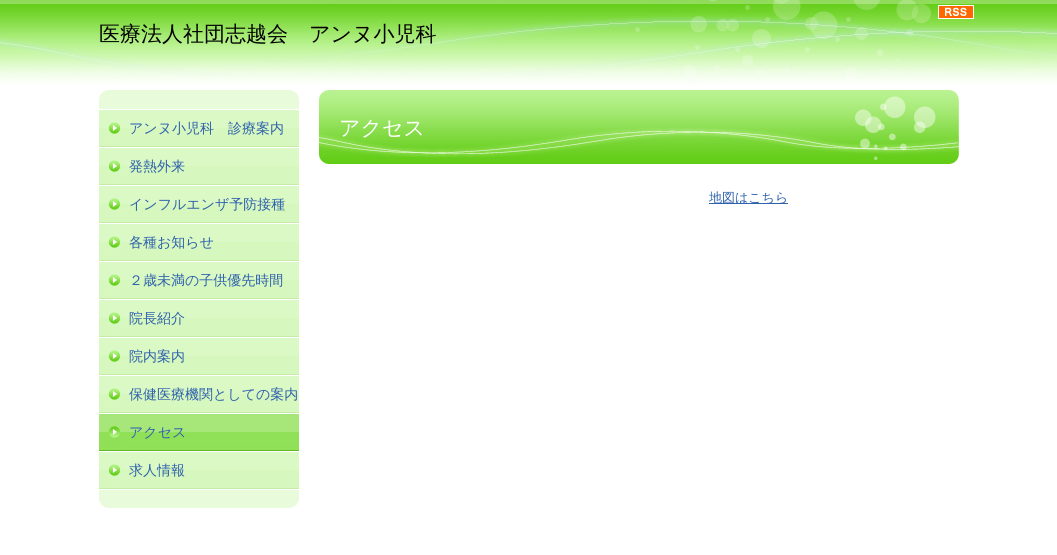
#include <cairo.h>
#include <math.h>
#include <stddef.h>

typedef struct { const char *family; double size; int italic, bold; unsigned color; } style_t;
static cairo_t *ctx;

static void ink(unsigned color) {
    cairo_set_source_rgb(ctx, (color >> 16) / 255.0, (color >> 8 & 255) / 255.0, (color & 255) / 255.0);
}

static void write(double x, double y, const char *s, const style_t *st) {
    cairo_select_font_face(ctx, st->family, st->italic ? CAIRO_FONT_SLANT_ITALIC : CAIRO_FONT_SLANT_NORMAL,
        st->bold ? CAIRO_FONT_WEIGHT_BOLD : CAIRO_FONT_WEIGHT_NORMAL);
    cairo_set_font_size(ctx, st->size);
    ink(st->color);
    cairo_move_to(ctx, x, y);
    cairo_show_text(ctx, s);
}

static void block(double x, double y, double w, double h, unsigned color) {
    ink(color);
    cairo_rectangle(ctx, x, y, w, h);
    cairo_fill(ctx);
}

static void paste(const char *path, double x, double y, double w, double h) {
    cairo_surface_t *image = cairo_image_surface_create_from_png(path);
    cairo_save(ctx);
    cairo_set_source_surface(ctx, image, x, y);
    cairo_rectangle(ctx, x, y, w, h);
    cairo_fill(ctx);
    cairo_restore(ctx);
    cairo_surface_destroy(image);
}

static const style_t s1 = {"WenQuanYi Zen Hei Medium", 21, 0, 0, 0x000000};
static const style_t s2 = {"WenQuanYi Zen Hei Medium", 14, 0, 0, 0x2e61ac};
static const style_t s3 = {"WenQuanYi Zen Hei Medium", 21, 0, 0, 0xffffff};
static const style_t s4 = {"WenQuanYi Zen Hei Medium", 13, 0, 0, 0x2e61ac};

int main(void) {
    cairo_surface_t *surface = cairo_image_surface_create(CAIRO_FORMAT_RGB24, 1057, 555);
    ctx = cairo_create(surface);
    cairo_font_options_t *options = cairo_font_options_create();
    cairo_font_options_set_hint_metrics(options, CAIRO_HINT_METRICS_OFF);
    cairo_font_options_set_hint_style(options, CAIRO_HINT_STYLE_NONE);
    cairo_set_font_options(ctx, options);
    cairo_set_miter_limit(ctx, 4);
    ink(0xffffff);
    cairo_paint(ctx);
    paste("pic1.png", 0, 0, 1057, 85);
    paste("pic2.png", 435, 0, 543, 64);
    paste("pic3.png", 938, 5, 36, 14);
    write(99, 41, "医療法人社団志越会　アンヌ小児科", &s1);
    paste("pic4.png", 99, 90, 200, 19);
    paste("pic5.png", 99, 490, 200, 18);
    paste("pic6.png", 99, 110, 200, 37);
    write(129, 133, "アンヌ小児科　診療案内", &s2);
    paste("pic6.png", 99, 148, 200, 37);
    write(129, 171, "発熱外来", &s2);
    paste("pic6.png", 99, 186, 200, 37);
    write(129, 209, "インフルエンザ予防接種", &s2);
    paste("pic6.png", 99, 224, 200, 37);
    write(129, 247, "各種お知らせ", &s2);
    paste("pic6.png", 99, 262, 200, 37);
    write(129, 285, "２歳未満の子供優先時間", &s2);
    paste("pic6.png", 99, 300, 200, 37);
    write(129, 323, "院長紹介", &s2);
    paste("pic6.png", 99, 338, 200, 37);
    write(129, 361, "院内案内", &s2);
    paste("pic6.png", 99, 376, 200, 37);
    write(129, 399, "保健医療機関としての案内", &s2);
    paste("pic7.png", 99, 414, 200, 37);
    write(129, 437, "アクセス", &s2);
    paste("pic6.png", 99, 452, 200, 37);
    write(129, 475, "求人情報", &s2);
    paste("pic8.png", 319, 90, 640, 74);
    write(339, 135, "アクセス", &s3);
    block(709, 203, 79, 1, 0x2e61ac);
    write(709, 202, "地図はこちら", &s4);
    cairo_surface_write_to_png(surface, "screenshot.png");
    cairo_font_options_destroy(options);
    cairo_destroy(ctx);
    cairo_surface_destroy(surface);
    return 0;
}
